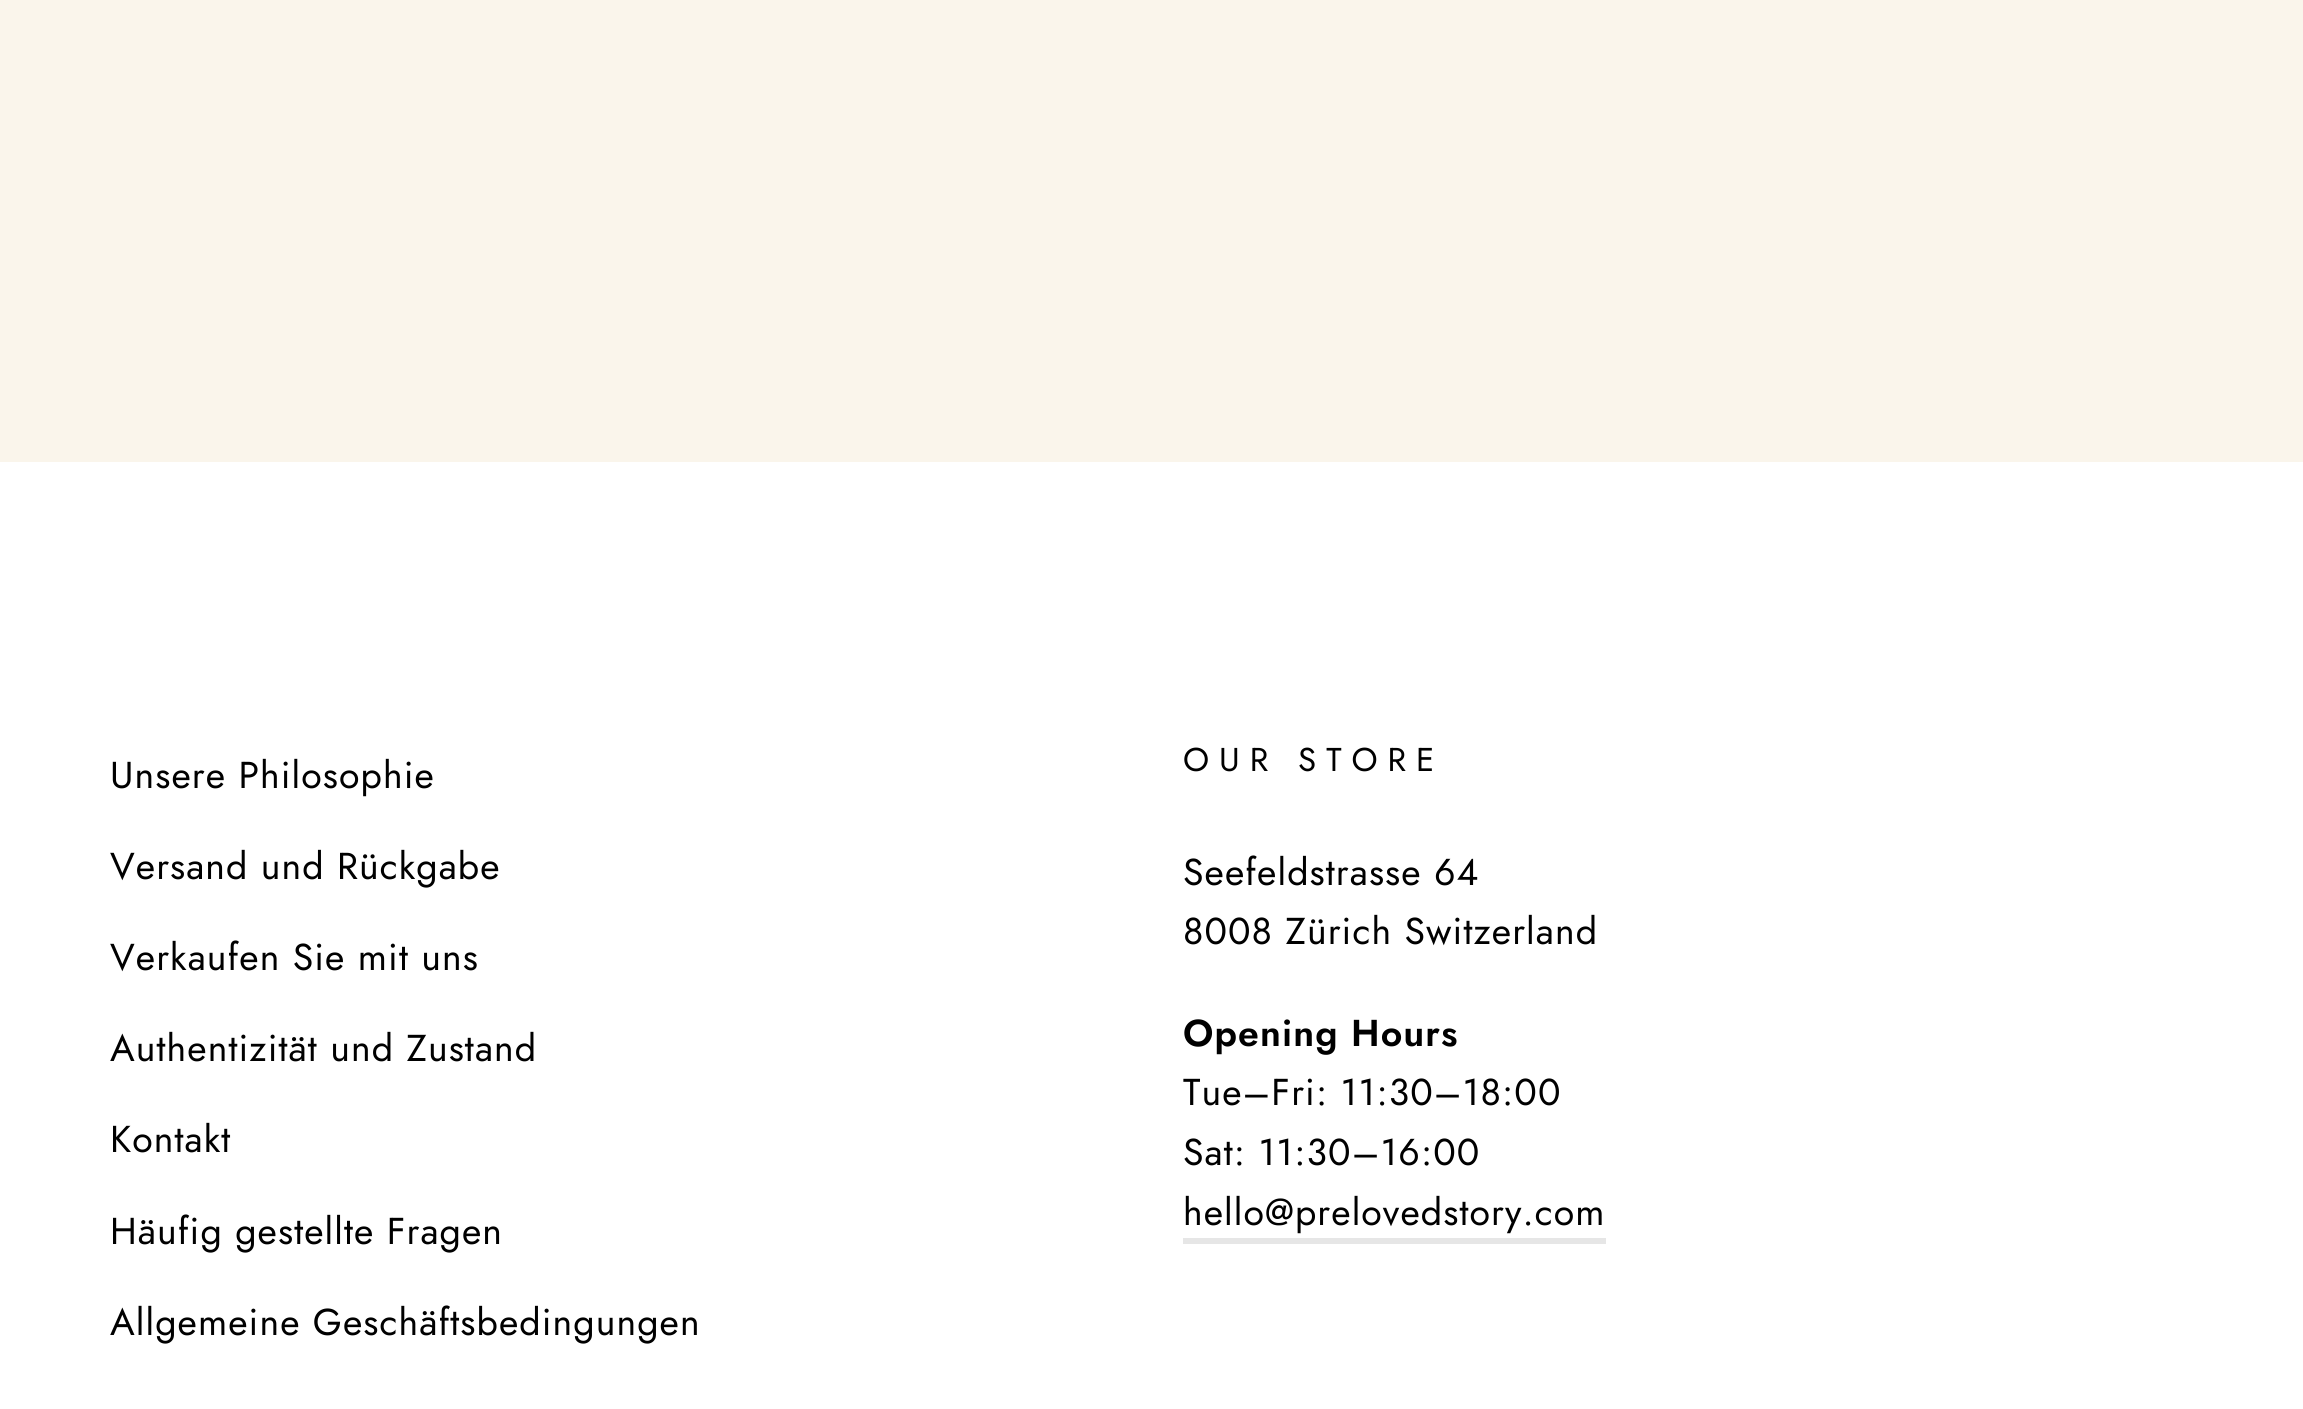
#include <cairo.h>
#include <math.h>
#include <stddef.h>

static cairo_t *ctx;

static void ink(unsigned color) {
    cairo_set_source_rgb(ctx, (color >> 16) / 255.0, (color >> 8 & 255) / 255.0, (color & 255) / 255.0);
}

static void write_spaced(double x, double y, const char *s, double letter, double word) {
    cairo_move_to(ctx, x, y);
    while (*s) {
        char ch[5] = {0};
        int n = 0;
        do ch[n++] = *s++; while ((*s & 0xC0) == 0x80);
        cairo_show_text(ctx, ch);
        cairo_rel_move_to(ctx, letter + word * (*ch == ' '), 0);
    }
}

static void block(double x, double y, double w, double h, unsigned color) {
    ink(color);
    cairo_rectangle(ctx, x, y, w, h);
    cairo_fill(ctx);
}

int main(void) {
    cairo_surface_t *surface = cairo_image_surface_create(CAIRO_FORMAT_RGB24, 2303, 1409);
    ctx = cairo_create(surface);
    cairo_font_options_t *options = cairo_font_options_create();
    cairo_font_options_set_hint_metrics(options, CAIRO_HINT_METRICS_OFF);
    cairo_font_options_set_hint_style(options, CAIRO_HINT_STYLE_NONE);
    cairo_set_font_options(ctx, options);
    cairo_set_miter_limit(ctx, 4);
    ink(0xfaf5eb);
    cairo_paint(ctx);
    block(0, 462, 2303, 947, 0xffffff);
    cairo_select_font_face(ctx, "Jost", CAIRO_FONT_SLANT_NORMAL, CAIRO_FONT_WEIGHT_NORMAL);
    cairo_set_font_size(ctx, 37.4);
    ink(0x000000);
    write_spaced(110, 788, "Unsere Philosophie", 1.1, 0);
    write_spaced(110, 879, "Versand und Rückgabe", 1.1, 0);
    write_spaced(110, 970, "Verkaufen Sie mit uns", 1.1, 0);
    write_spaced(110, 1061, "Authentizität und Zustand", 1.1, 0);
    write_spaced(110, 1152, "Kontakt", 1.1, 0);
    write_spaced(110, 1244, "Häufig gestellte Fragen", 1.1, 0);
    write_spaced(110, 1335, "Allgemeine Geschäftsbedingungen", 1.1, 0);
    cairo_set_font_size(ctx, 33);
    write_spaced(1183, 771, "OUR STORE", 10, 0);
    cairo_set_font_size(ctx, 37.4);
    write_spaced(1183, 885, "Seefeldstrasse 64", 1.1, 0);
    write_spaced(1183, 944, "8008 Zürich Switzerland", 1.1, 0);
    cairo_select_font_face(ctx, "Jost SemiBold", CAIRO_FONT_SLANT_NORMAL, CAIRO_FONT_WEIGHT_NORMAL);
    write_spaced(1183, 1046, "Opening Hours", 1.1, 0);
    cairo_select_font_face(ctx, "Jost", CAIRO_FONT_SLANT_NORMAL, CAIRO_FONT_WEIGHT_NORMAL);
    write_spaced(1183, 1105, "Tue–Fri: 11:30–18:00", 1.1, 0);
    write_spaced(1183, 1165, "Sat: 11:30–16:00", 1.1, 0);
    write_spaced(1183, 1225, "hello@prelovedstory.com", 1.1, 0);
    block(1183, 1238, 423, 6, 0xe6e6e6);
    cairo_surface_write_to_png(surface, "screenshot.png");
    cairo_font_options_destroy(options);
    cairo_destroy(ctx);
    cairo_surface_destroy(surface);
    return 0;
}
